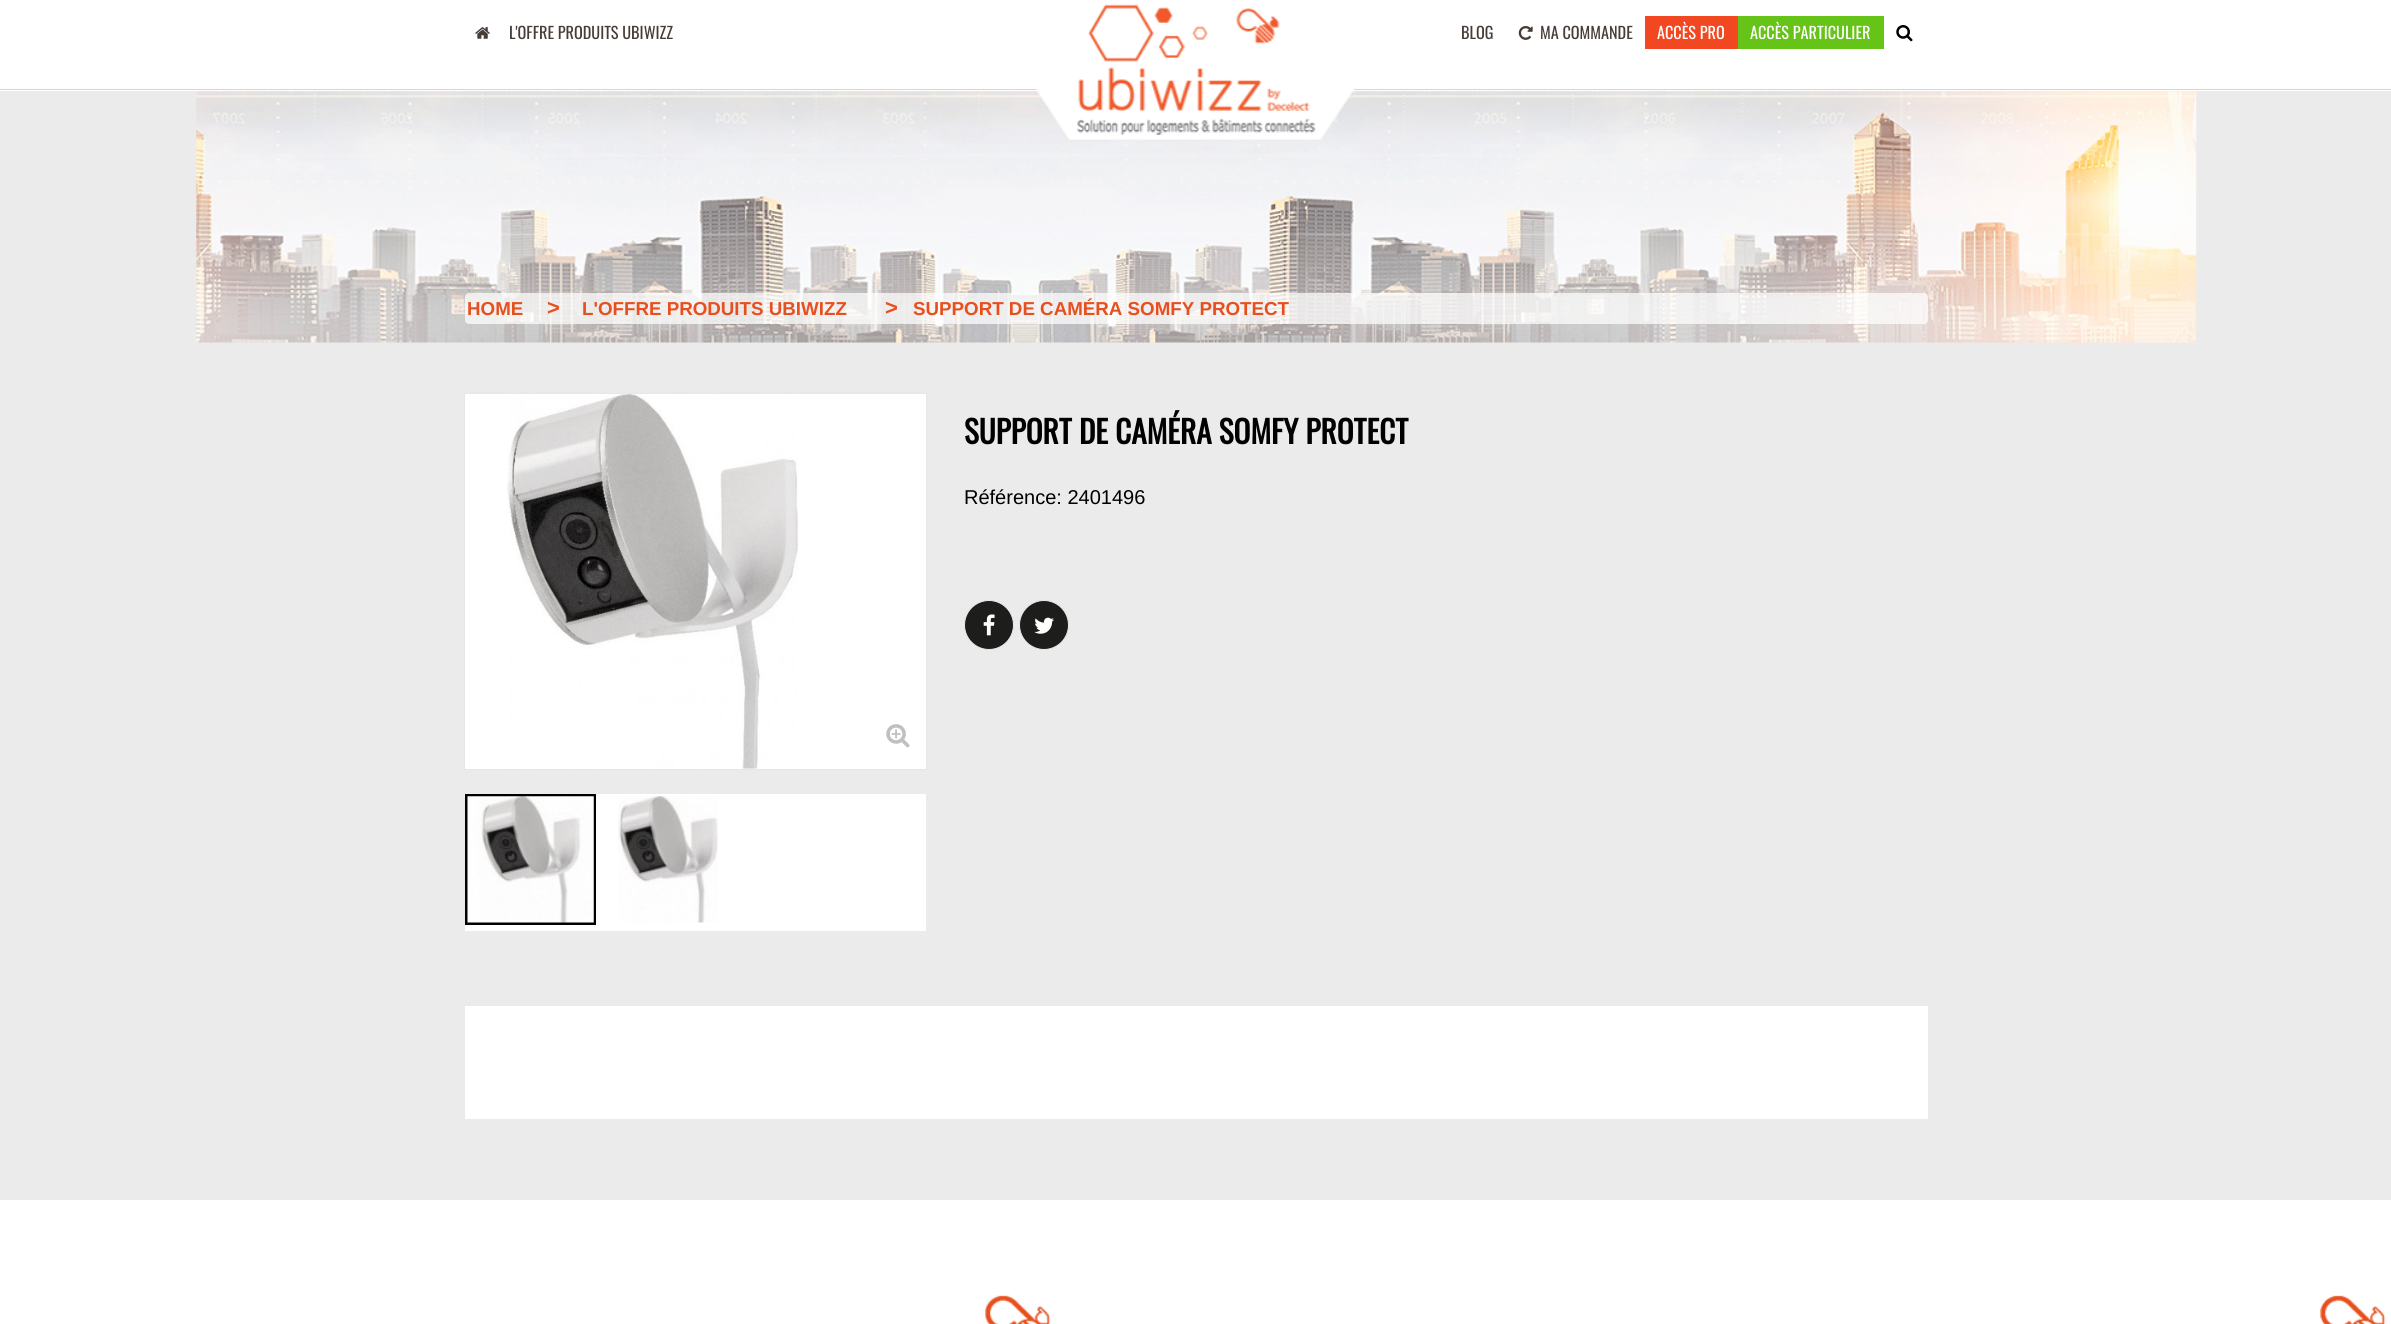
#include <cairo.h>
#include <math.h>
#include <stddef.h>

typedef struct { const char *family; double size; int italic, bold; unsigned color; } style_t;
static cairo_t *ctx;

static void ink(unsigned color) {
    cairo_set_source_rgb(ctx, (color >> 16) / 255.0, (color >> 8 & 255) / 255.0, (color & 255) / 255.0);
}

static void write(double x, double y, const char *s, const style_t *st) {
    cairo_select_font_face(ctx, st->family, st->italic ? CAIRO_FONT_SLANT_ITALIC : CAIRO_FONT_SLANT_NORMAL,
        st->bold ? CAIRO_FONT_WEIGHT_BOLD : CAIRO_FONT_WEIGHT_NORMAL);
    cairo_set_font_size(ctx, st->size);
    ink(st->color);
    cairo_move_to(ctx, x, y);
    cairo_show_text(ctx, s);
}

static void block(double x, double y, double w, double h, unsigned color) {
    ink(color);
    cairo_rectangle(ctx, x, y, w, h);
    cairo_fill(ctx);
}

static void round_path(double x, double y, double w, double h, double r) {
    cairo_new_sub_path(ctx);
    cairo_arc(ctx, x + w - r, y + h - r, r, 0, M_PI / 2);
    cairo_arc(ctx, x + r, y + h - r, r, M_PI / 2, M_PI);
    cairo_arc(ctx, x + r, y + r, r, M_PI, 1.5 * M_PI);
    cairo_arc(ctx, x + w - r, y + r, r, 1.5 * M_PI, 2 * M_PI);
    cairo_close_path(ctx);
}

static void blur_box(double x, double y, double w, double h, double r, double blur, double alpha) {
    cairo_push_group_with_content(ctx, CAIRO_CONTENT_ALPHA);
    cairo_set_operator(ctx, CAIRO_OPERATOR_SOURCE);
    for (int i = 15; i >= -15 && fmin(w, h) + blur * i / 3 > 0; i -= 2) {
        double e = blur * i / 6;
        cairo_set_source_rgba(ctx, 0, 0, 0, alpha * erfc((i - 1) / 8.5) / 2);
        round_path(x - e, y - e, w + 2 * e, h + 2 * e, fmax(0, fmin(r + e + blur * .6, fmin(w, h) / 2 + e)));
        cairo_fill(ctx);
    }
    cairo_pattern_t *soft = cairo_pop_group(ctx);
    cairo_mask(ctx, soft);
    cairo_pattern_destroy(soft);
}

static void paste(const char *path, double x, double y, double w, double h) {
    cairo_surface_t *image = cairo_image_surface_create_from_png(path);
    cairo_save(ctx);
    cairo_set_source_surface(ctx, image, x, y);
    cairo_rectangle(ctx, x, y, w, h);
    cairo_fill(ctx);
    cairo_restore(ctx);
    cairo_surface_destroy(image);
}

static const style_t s1 = {"Oswald", 16.25, 0, 0, 0x473c38};
static const style_t s2 = {"Oswald", 16.25, 0, 0, 0xffffff};
static const style_t s3 = {"Arimo", 18.75, 0, 1, 0xe7501e};
static const style_t s4 = {"Arimo", 22, 0, 1, 0xe7501e};
static const style_t s5 = {"Oswald", 31.25, 0, 1, 0x000000};
static const style_t s6 = {"Arimo", 20, 0, 0, 0x000000};

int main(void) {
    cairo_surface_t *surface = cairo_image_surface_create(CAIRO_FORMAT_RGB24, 2391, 1324);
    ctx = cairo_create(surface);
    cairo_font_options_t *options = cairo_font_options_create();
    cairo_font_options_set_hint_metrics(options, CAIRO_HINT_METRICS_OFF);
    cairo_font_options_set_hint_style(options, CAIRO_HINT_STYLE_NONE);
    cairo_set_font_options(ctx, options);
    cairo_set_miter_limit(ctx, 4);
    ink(0xebebeb);
    cairo_paint(ctx);
    block(0, 0, 2391, 91, 0xffffff);
    paste("pic1.png", 475, 27, 15, 12);
    write(509, 39, "L'OFFRE PRODUITS UBIWIZZ", &s1);
    block(0, 89, 2391, 1, 0xdad3d3);
    paste("pic5.png", 196, 91, 2001, 252);
    paste("pic2.png", 1035, 4, 320, 136);
    write(1461, 39, "BLOG", &s1);
    paste("pic3.png", 1518, 26, 15, 14);
    write(1540, 39, "MA COMMANDE", &s1);
    block(1645, 16, 93, 33, 0xf24821);
    write(1657, 39, "ACCÈS PRO", &s2);
    block(1738, 16, 146, 33, 0x66c317);
    write(1750, 39, "ACCÈS PARTICULIER", &s2);
    paste("pic4.png", 1896, 25, 17, 17);
    cairo_set_source_rgba(ctx, 1, 1, 1, 0.72);
    round_path(465, 293, 1463, 31, 4);
    cairo_fill(ctx);
    write(467, 315, "HOME", &s3);
    write(547, 315, ">", &s4);
    write(582, 315, "L'OFFRE PRODUITS UBIWIZZ", &s3);
    write(885, 315, ">", &s4);
    write(913, 315, "SUPPORT DE CAMÉRA SOMFY PROTECT", &s3);
    ink(0xdddddd);
    blur_box(465, 394, 461, 375, 0, 1, 1);
    block(465, 394, 461, 375, 0xffffff);
    paste("pic6.png", 507, 394, 291, 375);
    paste("pic7.png", 886, 724, 24, 24);
    block(465, 794, 461, 137, 0xffffff);
    cairo_rectangle(ctx, 466.5, 795.5, 128, 128);
    ink(0x000000);
    cairo_set_line_width(ctx, 3);
    cairo_stroke(ctx);
    paste("pic8.png", 467, 796, 127, 127);
    paste("pic9.png", 618, 796, 100, 127);
    write(964, 444, "SUPPORT DE CAMÉRA SOMFY PROTECT", &s5);
    write(964, 504, "Référence: 2401496", &s6);
    ink(0x1d1d1b);
    cairo_new_path(ctx);
    cairo_arc(ctx, 989, 625, 24.5, 0, 2 * M_PI);
    cairo_fill_preserve(ctx);
    ink(0xeaeaea);
    cairo_set_line_width(ctx, 1);
    cairo_stroke(ctx);
    paste("pic10.png", 983, 614, 12, 22);
    ink(0x1d1d1b);
    cairo_arc(ctx, 1044, 625, 24.5, 0, 2 * M_PI);
    cairo_fill_preserve(ctx);
    ink(0xeaeaea);
    cairo_stroke(ctx);
    paste("pic11.png", 1034, 617, 20, 17);
    block(465, 1006, 1463, 113, 0xffffff);
    block(0, 1200, 2391, 124, 0xffffff);
    paste("pic12.png", 985, 1295, 1401, 29);
    cairo_surface_write_to_png(surface, "screenshot.png");
    cairo_font_options_destroy(options);
    cairo_destroy(ctx);
    cairo_surface_destroy(surface);
    return 0;
}
